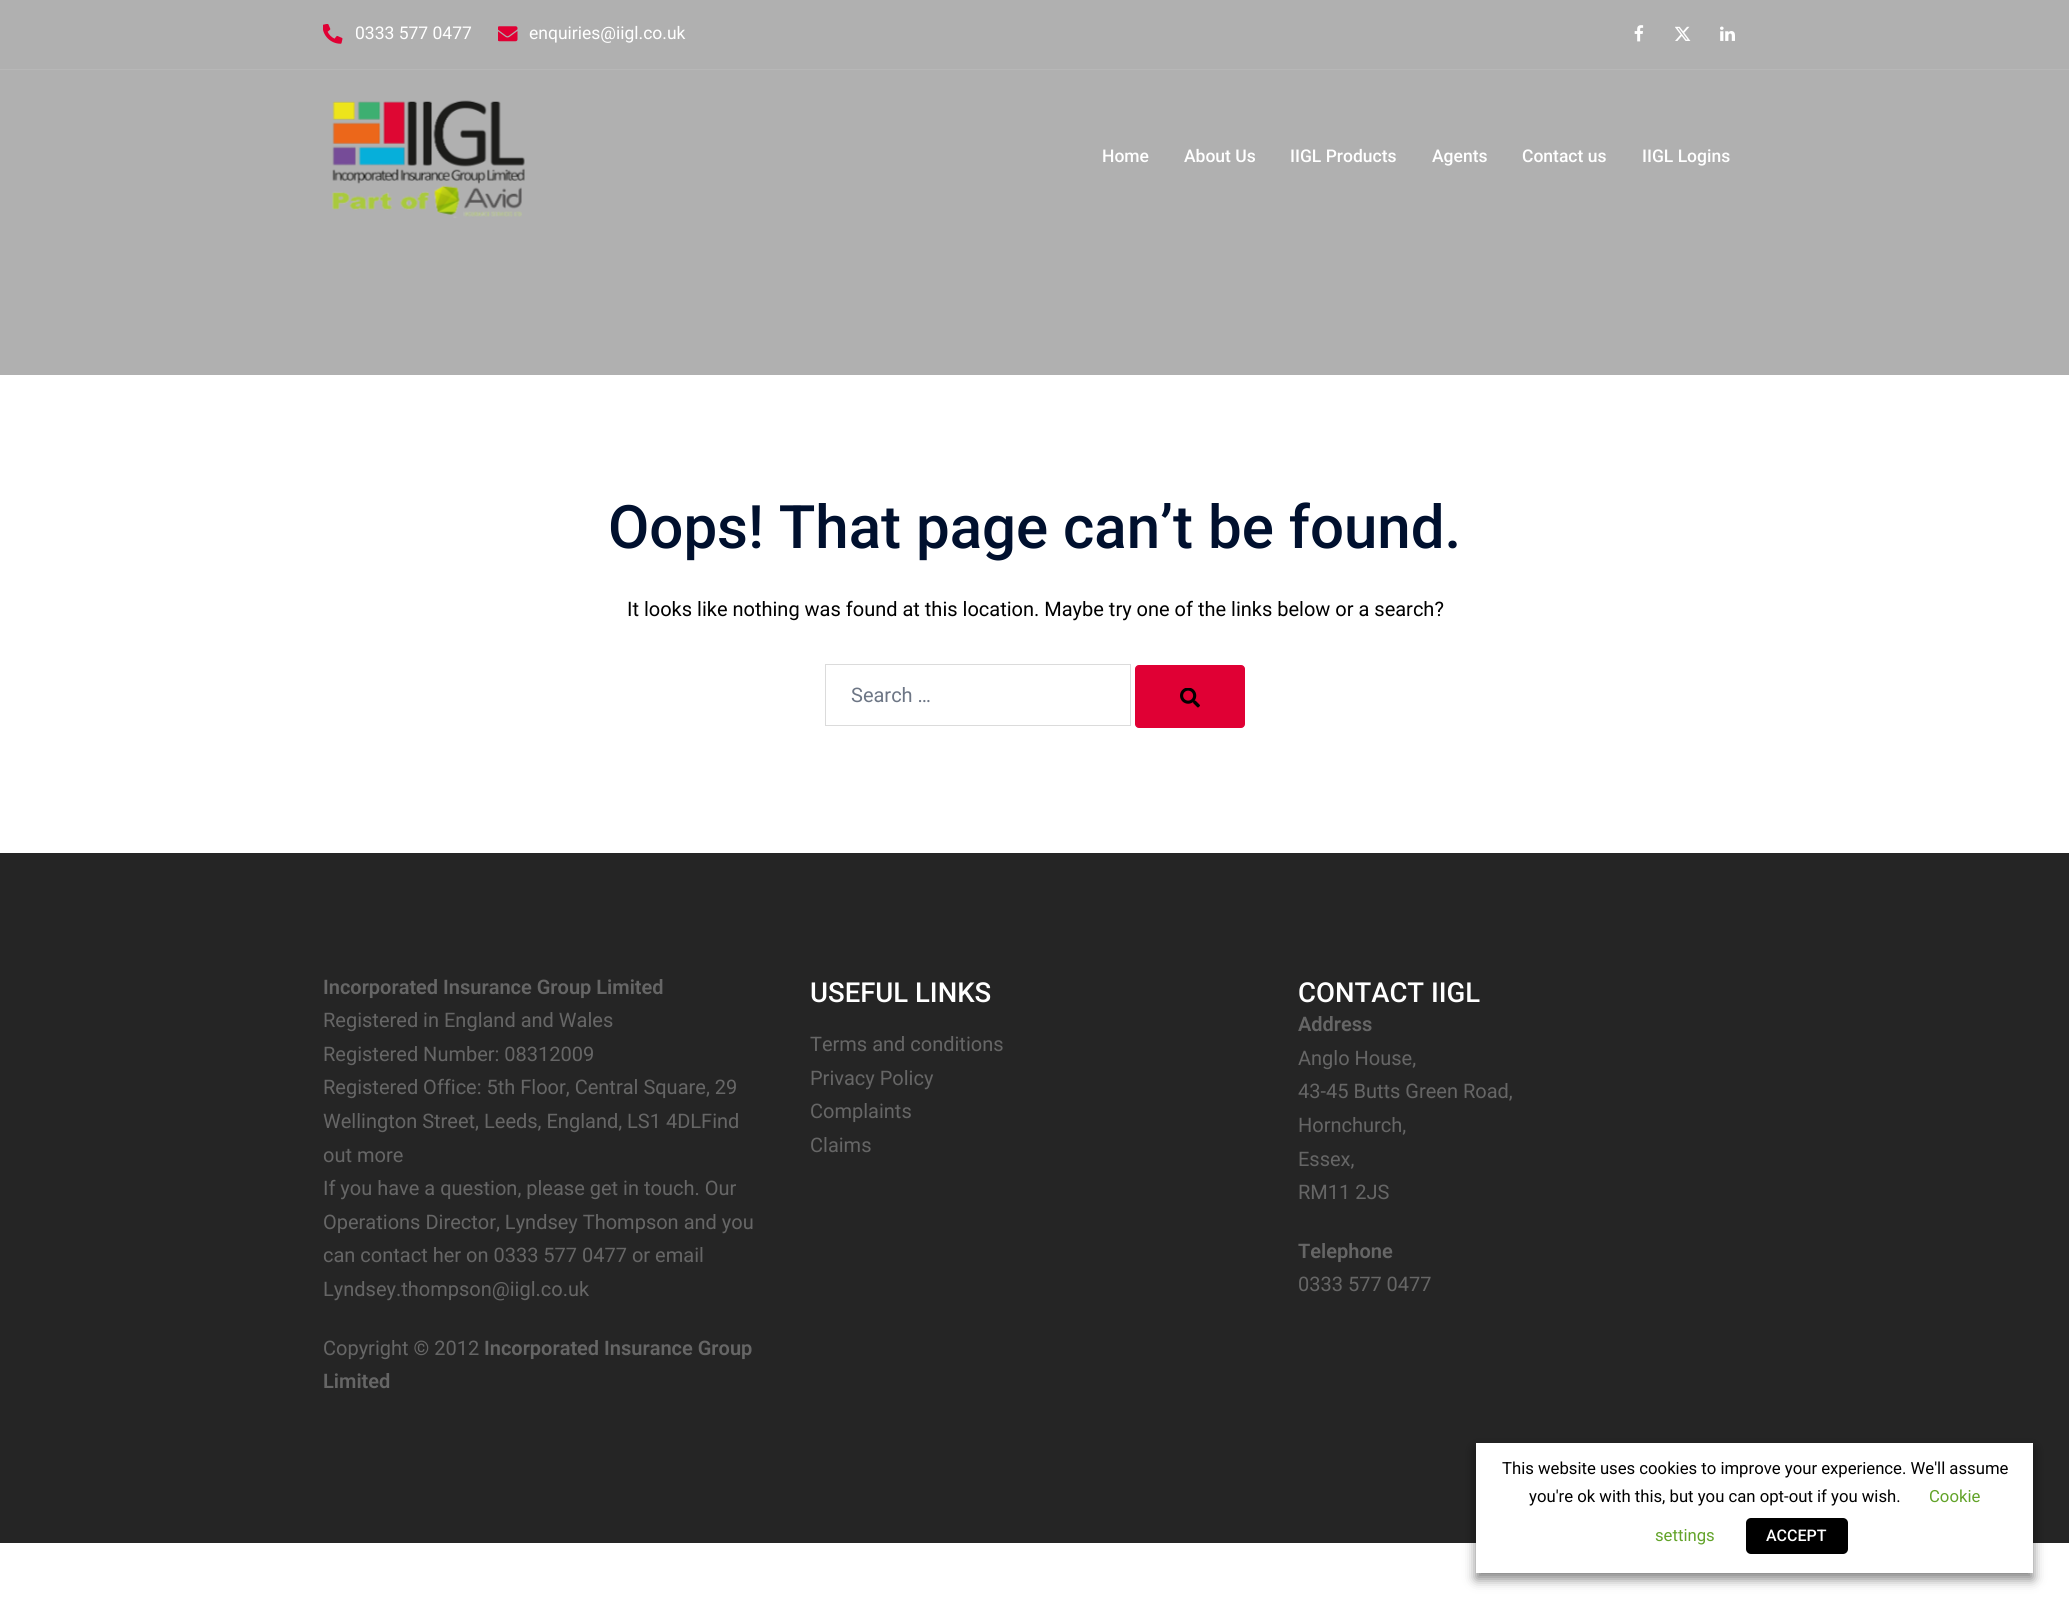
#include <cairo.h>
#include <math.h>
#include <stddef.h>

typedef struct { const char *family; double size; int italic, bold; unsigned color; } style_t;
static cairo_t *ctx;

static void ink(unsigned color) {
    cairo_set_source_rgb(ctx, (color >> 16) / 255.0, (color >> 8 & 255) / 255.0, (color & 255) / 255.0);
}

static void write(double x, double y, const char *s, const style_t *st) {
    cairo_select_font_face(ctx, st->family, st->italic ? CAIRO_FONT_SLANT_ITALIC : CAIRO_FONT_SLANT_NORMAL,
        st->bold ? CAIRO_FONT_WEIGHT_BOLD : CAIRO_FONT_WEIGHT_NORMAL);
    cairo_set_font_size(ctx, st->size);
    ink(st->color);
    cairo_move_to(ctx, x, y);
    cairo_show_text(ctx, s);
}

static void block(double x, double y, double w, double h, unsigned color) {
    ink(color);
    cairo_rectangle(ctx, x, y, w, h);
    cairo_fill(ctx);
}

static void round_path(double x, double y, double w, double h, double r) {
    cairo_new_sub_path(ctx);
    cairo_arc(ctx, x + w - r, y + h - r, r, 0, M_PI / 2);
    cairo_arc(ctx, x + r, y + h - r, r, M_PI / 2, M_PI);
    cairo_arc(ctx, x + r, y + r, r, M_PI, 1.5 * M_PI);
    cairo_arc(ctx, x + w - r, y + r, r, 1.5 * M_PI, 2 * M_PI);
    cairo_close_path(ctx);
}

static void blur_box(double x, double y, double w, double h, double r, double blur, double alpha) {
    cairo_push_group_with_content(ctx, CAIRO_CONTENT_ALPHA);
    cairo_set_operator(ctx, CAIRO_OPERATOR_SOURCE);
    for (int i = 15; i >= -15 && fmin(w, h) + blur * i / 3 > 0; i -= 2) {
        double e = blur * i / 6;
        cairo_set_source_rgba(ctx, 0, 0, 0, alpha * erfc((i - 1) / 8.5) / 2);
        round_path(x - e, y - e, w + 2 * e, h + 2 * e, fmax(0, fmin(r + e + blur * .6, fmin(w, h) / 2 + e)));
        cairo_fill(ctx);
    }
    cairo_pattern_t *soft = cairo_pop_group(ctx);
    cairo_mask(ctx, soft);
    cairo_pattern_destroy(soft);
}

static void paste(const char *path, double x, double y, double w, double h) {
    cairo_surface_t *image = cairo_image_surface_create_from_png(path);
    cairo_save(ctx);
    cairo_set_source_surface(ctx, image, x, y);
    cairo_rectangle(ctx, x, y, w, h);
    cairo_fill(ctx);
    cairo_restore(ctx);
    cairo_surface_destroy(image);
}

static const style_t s1 = {"Roboto", 17.5, 0, 0, 0xffffff};
static const style_t s2 = {"Roboto Medium", 17.5, 0, 0, 0xffffff};
static const style_t s3 = {"Roboto Medium", 60, 0, 0, 0x00102e};
static const style_t s4 = {"Roboto", 20, 0, 0, 0x000000};
static const style_t s5 = {"Roboto", 20, 0, 0, 0x6d7685};
static const style_t s6 = {"Roboto SemiBold", 20, 0, 0, 0x666666};
static const style_t s7 = {"Roboto", 20, 0, 0, 0x666666};
static const style_t s8 = {"Roboto Medium", 27.5, 0, 0, 0xffffff};
static const style_t s9 = {"Roboto", 16.7, 0, 0, 0x000000};
static const style_t s10 = {"Roboto", 16.7, 0, 0, 0x62a329};
static const style_t s11 = {"Roboto Medium", 16, 0, 0, 0xffffff};

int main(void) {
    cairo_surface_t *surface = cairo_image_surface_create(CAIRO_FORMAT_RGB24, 2069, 1609);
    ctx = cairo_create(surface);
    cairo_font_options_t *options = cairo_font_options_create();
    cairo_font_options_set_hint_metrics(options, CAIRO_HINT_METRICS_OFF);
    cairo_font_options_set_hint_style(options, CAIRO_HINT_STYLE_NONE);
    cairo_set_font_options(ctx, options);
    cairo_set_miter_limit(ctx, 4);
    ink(0xffffff);
    cairo_paint(ctx);
    block(0, 0, 2069, 375, 0xb0b0b0);
    block(0, 69, 2069, 1, 0xb7b7b7);
    paste("pic1.png", 323, 24, 20, 20);
    write(355, 39, "0333 577 0477", &s1);
    paste("pic2.png", 498, 26, 20, 16);
    write(529, 39, "enquiries@iigl.co.uk", &s1);
    paste("pic3.png", 1634, 25, 10, 17);
    paste("pic4.png", 1675, 26, 16, 15);
    paste("pic5.png", 1720, 26, 15, 15);
    paste("pic6.png", 332, 100, 193, 118);
    write(1102, 162, "Home", &s2);
    write(1184, 162, "About Us", &s2);
    write(1290, 162, "IIGL Products", &s2);
    write(1432, 162, "Agents", &s2);
    write(1522, 162, "Contact us", &s2);
    write(1642, 162, "IIGL Logins", &s2);
    write(608, 548, "Oops! That page can’t be found.", &s3);
    write(627, 616, "It looks like nothing was found at this location. Maybe try one of the links below or a search?", &s4);
    cairo_rectangle(ctx, 825.5, 664.5, 305, 61);
    ink(0xdbdbdb);
    cairo_set_line_width(ctx, 1);
    cairo_stroke(ctx);
    write(851, 702, "Search …", &s5);
    ink(0xe00034);
    round_path(1135.5, 665.5, 109, 62, 3.5);
    cairo_fill_preserve(ctx);
    cairo_stroke(ctx);
    paste("pic7.png", 1180, 688, 20, 20);
    block(0, 853, 2069, 690, 0x252525);
    write(323, 994, "Incorporated Insurance Group Limited", &s6);
    write(323, 1027, "Registered in England and Wales", &s7);
    write(323, 1061, "Registered Number: 08312009", &s7);
    write(323, 1094, "Registered Office: 5th Floor, Central Square, 29", &s7);
    write(323, 1128, "Wellington Street, Leeds, England, LS1 4DLFind", &s7);
    write(323, 1162, "out more", &s7);
    write(323, 1195, "If you have a question, please get in touch. Our", &s7);
    write(323, 1229, "Operations Director, Lyndsey Thompson and you", &s7);
    write(323, 1262, "can contact her on 0333 577 0477 or email", &s7);
    write(323, 1296, "Lyndsey.thompson@iigl.co.uk", &s7);
    write(323, 1355, "Copyright © 2012", &s7);
    write(484, 1355, "Incorporated Insurance Group", &s6);
    write(323, 1388, "Limited", &s6);
    write(810, 1002, "USEFUL LINKS", &s8);
    write(810, 1051, "Terms and conditions", &s7);
    write(810, 1085, "Privacy Policy", &s7);
    write(810, 1118, "Complaints", &s7);
    write(810, 1152, "Claims", &s7);
    write(1298, 1002, "CONTACT IIGL", &s8);
    write(1298, 1031, "Address", &s6);
    write(1298, 1065, "Anglo House,", &s7);
    write(1298, 1098, "43-45 Butts Green Road,", &s7);
    write(1298, 1132, "Hornchurch,", &s7);
    write(1298, 1166, "Essex,", &s7);
    write(1298, 1199, "RM11 2JS", &s7);
    write(1298, 1258, "Telephone", &s6);
    write(1298, 1291, "0333 577 0477", &s7);
    ink(0x000000);
    blur_box(1476, 1449, 557, 130, 0, 6, 0.5);
    block(1476, 1443, 557, 130, 0xffffff);
    write(1502, 1474, "This website uses cookies to improve your experience. We'll assume", &s9);
    write(1529, 1502, "you're ok with this, but you can opt-out if you wish.", &s9);
    write(1929, 1502, "Cookie", &s10);
    write(1655, 1541, "settings", &s10);
    ink(0x000000);
    round_path(1746, 1518, 102, 36, 5);
    cairo_fill(ctx);
    write(1766, 1541, "ACCEPT", &s11);
    cairo_surface_write_to_png(surface, "screenshot.png");
    cairo_font_options_destroy(options);
    cairo_destroy(ctx);
    cairo_surface_destroy(surface);
    return 0;
}
